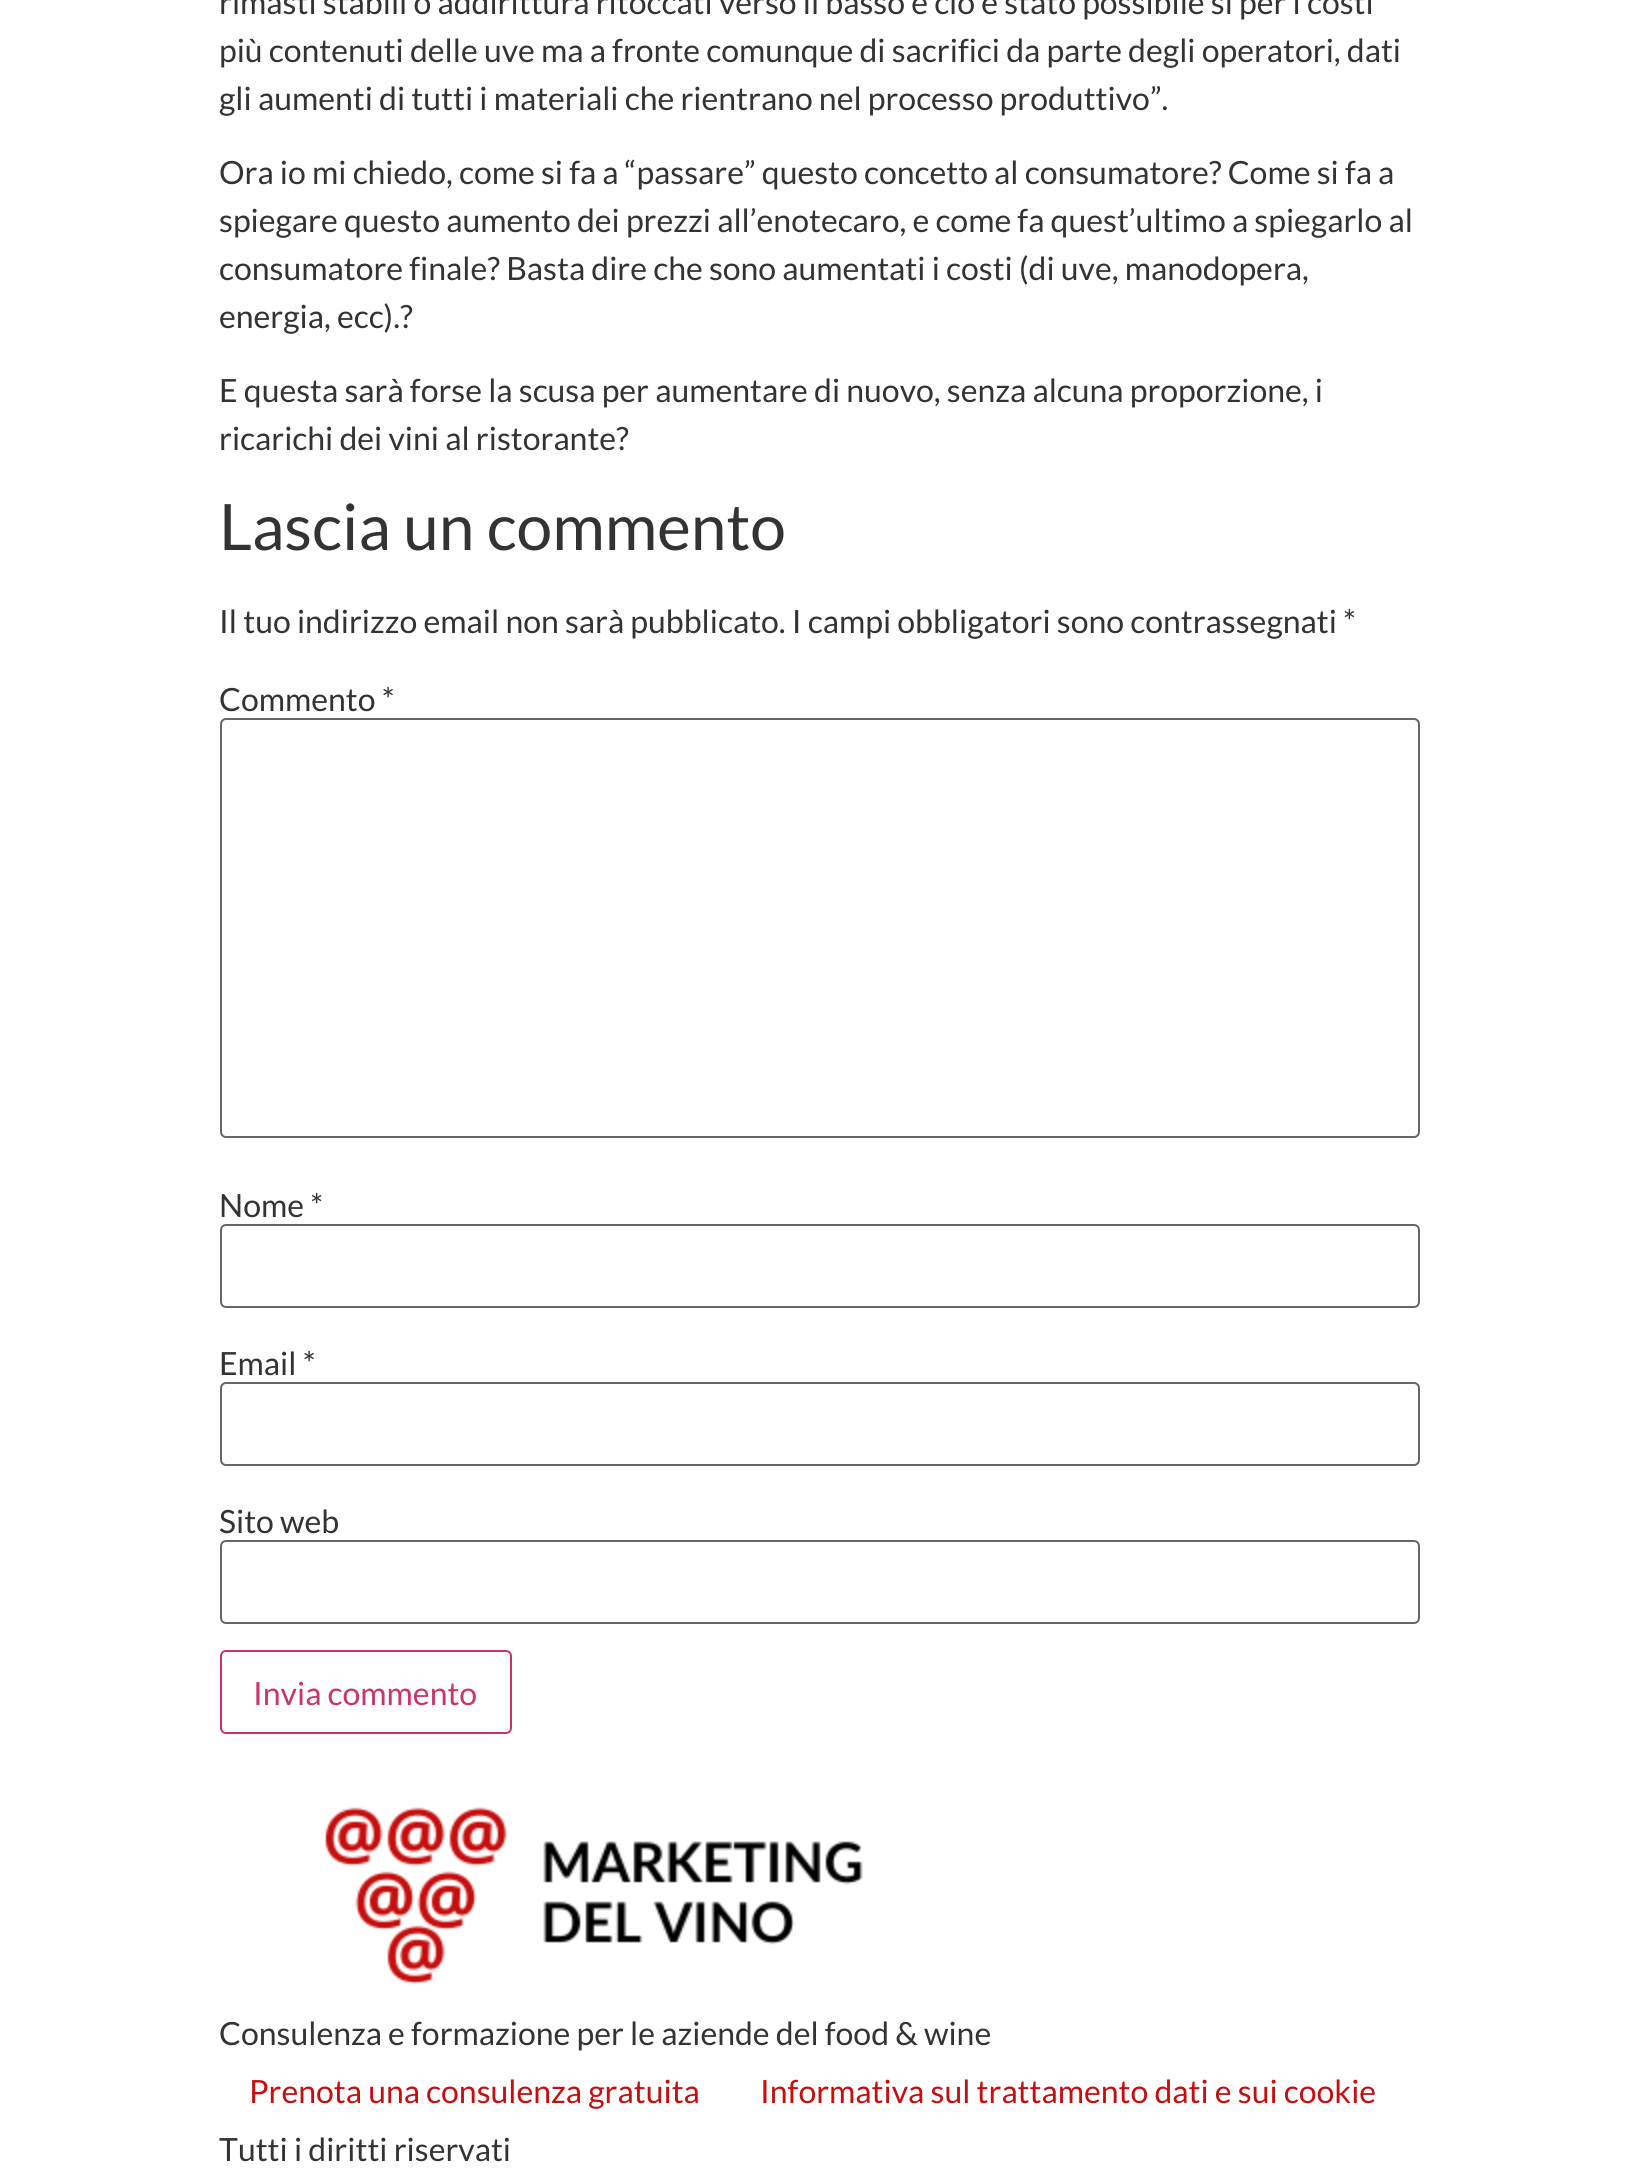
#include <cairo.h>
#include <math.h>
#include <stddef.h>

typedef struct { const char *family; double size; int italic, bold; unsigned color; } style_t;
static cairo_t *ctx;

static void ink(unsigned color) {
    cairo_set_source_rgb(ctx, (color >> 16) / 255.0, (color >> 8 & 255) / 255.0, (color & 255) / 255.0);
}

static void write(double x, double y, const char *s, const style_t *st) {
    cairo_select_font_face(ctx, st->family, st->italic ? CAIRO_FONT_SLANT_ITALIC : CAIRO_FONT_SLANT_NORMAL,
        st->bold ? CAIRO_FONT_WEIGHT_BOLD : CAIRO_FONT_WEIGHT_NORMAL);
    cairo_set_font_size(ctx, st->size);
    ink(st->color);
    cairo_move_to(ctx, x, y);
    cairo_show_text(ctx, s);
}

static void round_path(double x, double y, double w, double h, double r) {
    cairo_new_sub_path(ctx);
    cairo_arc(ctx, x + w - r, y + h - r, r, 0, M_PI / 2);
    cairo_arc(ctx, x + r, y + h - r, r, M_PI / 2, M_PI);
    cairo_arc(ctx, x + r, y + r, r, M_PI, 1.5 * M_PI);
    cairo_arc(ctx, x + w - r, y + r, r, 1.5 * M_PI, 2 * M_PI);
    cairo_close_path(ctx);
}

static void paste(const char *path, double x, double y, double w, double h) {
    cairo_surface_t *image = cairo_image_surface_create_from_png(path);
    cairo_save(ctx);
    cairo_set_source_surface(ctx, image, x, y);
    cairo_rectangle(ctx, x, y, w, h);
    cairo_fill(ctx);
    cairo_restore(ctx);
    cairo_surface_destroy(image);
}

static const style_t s1 = {"Lato", 32, 0, 0, 0x333333};
static const style_t s2 = {"Lato", 64, 0, 0, 0x333333};
static const style_t s3 = {"Lato", 32, 0, 0, 0xcc3366};
static const style_t s4 = {"Lato", 32, 0, 0, 0xc60e0e};

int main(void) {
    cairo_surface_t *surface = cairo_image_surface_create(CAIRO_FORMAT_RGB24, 1637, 2172);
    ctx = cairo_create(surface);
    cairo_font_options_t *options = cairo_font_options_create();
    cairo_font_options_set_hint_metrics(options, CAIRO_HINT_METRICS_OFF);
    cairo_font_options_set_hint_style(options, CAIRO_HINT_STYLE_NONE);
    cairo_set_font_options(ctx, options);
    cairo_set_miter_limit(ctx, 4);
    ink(0xffffff);
    cairo_paint(ctx);
    write(219, 14, "rimasti stabili o addirittura ritoccati verso il basso e ciò è stato possibile sì per i costi", &s1);
    write(219, 62, "più contenuti delle uve ma a fronte comunque di sacrifici da parte degli operatori, dati", &s1);
    write(219, 110, "gli aumenti di tutti i materiali che rientrano nel processo produttivo”.", &s1);
    write(219, 184, "Ora io mi chiedo, come si fa a “passare” questo concetto al consumatore? Come si fa a", &s1);
    write(219, 232, "spiegare questo aumento dei prezzi all’enotecaro, e come fa quest’ultimo a spiegarlo al", &s1);
    write(219, 280, "consumatore finale? Basta dire che sono aumentati i costi (di uve, manodopera,", &s1);
    write(219, 328, "energia, ecc).?", &s1);
    write(219, 402, "E questa sarà forse la scusa per aumentare di nuovo, senza alcuna proporzione, i", &s1);
    write(219, 450, "ricarichi dei vini al ristorante?", &s1);
    write(219, 550, "Lascia un commento", &s2);
    write(219, 633, "Il tuo indirizzo email non sarà pubblicato. I campi obbligatori sono contrassegnati *", &s1);
    write(219, 711, "Commento *", &s1);
    round_path(221, 719, 1198, 418, 5);
    ink(0x666666);
    cairo_stroke(ctx);
    write(219, 1217, "Nome *", &s1);
    round_path(221, 1225, 1198, 82, 5);
    ink(0x666666);
    cairo_stroke(ctx);
    write(219, 1375, "Email *", &s1);
    round_path(221, 1383, 1198, 82, 5);
    ink(0x666666);
    cairo_stroke(ctx);
    write(219, 1533, "Sito web", &s1);
    round_path(221, 1541, 1198, 82, 5);
    ink(0x666666);
    cairo_stroke(ctx);
    round_path(221, 1651, 290, 82, 5);
    ink(0xcc3366);
    cairo_stroke(ctx);
    write(253, 1705, "Invia commento", &s3);
    paste("pic1.png", 325, 1807, 538, 178);
    write(219, 2045, "Consulenza e formazione per le aziende del food & wine", &s1);
    write(249, 2103, "Prenota una consulenza gratuita", &s4);
    write(760, 2103, "Informativa sul trattamento dati e sui cookie", &s4);
    write(219, 2161, "Tutti i diritti riservati", &s1);
    cairo_surface_write_to_png(surface, "screenshot.png");
    cairo_font_options_destroy(options);
    cairo_destroy(ctx);
    cairo_surface_destroy(surface);
    return 0;
}
